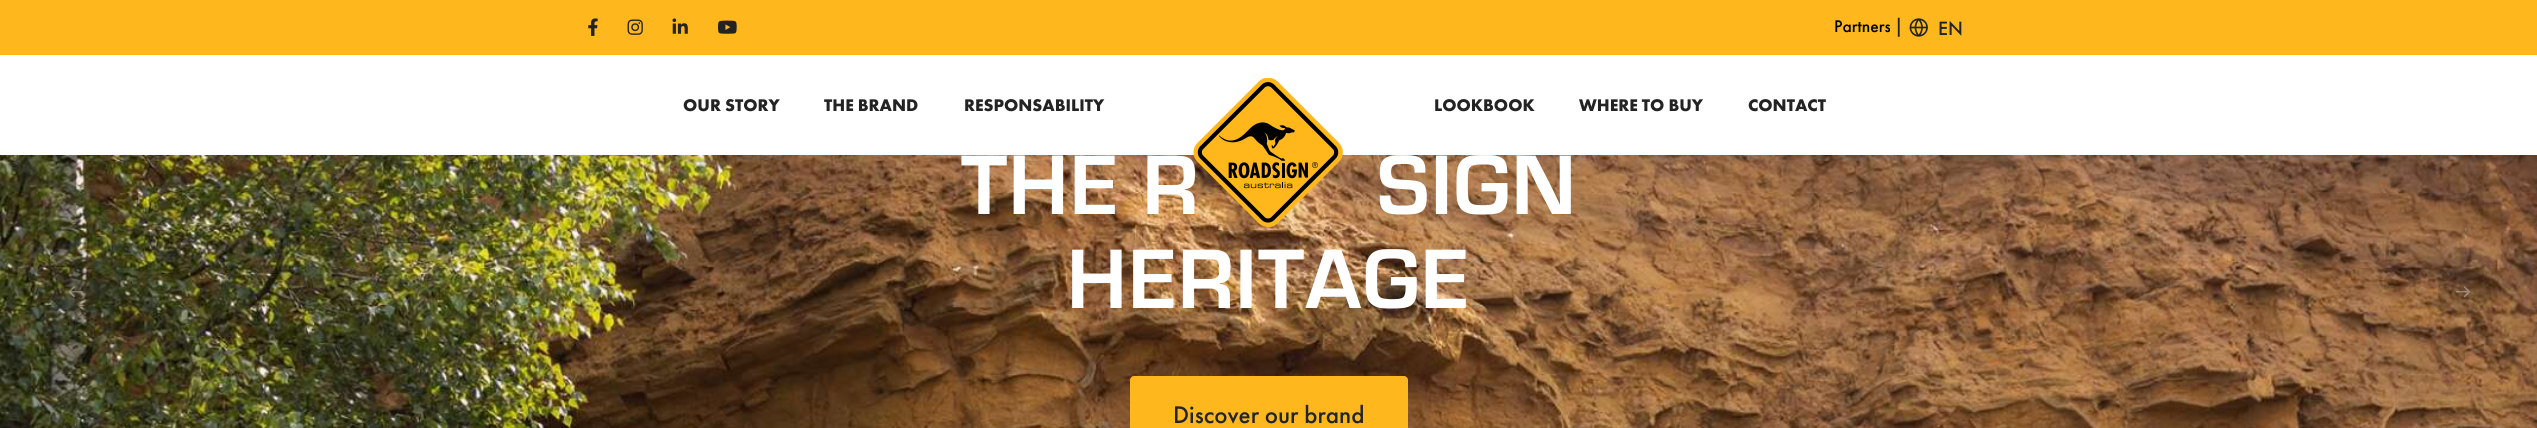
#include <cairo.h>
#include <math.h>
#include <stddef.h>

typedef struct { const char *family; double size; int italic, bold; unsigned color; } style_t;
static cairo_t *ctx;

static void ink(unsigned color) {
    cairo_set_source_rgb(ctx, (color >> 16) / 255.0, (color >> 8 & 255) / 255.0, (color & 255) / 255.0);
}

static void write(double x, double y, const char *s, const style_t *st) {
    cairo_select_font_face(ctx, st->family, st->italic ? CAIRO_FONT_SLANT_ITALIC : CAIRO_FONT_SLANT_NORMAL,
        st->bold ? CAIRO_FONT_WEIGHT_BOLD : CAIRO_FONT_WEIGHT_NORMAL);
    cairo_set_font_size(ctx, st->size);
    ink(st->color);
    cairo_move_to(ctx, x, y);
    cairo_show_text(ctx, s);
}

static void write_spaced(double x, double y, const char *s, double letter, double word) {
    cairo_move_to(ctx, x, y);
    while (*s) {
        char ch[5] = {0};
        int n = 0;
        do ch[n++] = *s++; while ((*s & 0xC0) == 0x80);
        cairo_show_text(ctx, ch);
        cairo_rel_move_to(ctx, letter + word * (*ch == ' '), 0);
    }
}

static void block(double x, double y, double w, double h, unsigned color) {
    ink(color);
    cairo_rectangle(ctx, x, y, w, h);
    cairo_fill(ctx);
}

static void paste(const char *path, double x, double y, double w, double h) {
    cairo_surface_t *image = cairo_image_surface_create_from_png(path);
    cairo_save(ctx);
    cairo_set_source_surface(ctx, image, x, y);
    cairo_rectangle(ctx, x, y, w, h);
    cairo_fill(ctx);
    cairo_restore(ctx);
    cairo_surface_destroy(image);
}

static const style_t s1 = {"Futura PT Medium", 17.5, 0, 0, 0x000000};
static const style_t s2 = {"Futura PT Medium", 19, 0, 0, 0x232323};
static const style_t s3 = {"Futura PT Medium", 20, 0, 0, 0x232323};
static const style_t s4 = {"Futura PT", 17.5, 0, 1, 0x232323};
static const style_t s5 = {"Futura PT Medium", 25, 0, 0, 0x212529};

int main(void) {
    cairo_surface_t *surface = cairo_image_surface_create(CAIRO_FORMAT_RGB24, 2537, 428);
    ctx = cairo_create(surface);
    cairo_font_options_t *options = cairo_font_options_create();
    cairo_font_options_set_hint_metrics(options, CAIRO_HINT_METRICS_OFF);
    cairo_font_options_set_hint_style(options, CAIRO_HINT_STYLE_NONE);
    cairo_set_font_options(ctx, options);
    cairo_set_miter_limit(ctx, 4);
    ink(0xffffff);
    cairo_paint(ctx);
    block(0, 0, 2537, 55, 0xffb71e);
    paste("pic1.png", 588, 18, 10, 18);
    paste("pic2.png", 627, 19, 16, 16);
    paste("pic3.png", 672, 18, 16, 16);
    paste("pic4.png", 718, 20, 19, 14);
    write(1834, 32, "Partners", &s1);
    write(1894, 32, "|", &s2);
    paste("pic5.png", 1909, 18, 19, 19);
    write(1938, 35, "EN", &s3);
    paste("pic8.png", 0, 155, 2537, 273);
    cairo_select_font_face(ctx, "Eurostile", CAIRO_FONT_SLANT_NORMAL, CAIRO_FONT_WEIGHT_BOLD);
    cairo_set_font_size(ctx, 87.5);
    ink(0xffffff);
    write_spaced(961, 214, "THE R", 1.25, 0);
    paste("pic6.png", 1193, 78, 150, 149);
    write(683, 111, "OUR STORY", &s4);
    write(824, 111, "THE BRAND", &s4);
    write(964, 111, "RESPONSABILITY", &s4);
    write(1434, 111, "LOOKBOOK", &s4);
    write(1579, 111, "WHERE TO BUY", &s4);
    write(1748, 111, "CONTACT", &s4);
    cairo_set_source_rgba(ctx, 0.09, 0.09, 0.09, 0.17);
    cairo_new_path(ctx);
    cairo_arc(ctx, 75, 293, 25, 0, 2 * M_PI);
    cairo_fill(ctx);
    paste("pic7.png", 68, 286, 15, 12);
    cairo_select_font_face(ctx, "Eurostile", CAIRO_FONT_SLANT_NORMAL, CAIRO_FONT_WEIGHT_BOLD);
    cairo_set_font_size(ctx, 87.5);
    ink(0xffffff);
    write_spaced(1377, 214, "SIGN", 1.25, 0);
    write_spaced(1067, 308, "HERITAGE", 1.25, 0);
    ink(0xffb71e);
    cairo_new_path(ctx);
    cairo_move_to(ctx, 1134, 376);
    cairo_line_to(ctx, 1404, 376);
    cairo_curve_to(ctx, 1406, 376, 1408, 378, 1408, 380);
    cairo_line_to(ctx, 1408, 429);
    cairo_line_to(ctx, 1130, 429);
    cairo_line_to(ctx, 1130, 380);
    cairo_curve_to(ctx, 1130, 378, 1132, 376, 1134, 376);
    cairo_close_path(ctx);
    cairo_fill(ctx);
    write(1173, 423, "Discover our brand", &s5);
    cairo_set_source_rgba(ctx, 0.09, 0.09, 0.09, 0.17);
    cairo_new_path(ctx);
    cairo_arc(ctx, 2463, 293, 25, 0, 2 * M_PI);
    cairo_fill(ctx);
    paste("pic9.png", 2456, 286, 14, 12);
    cairo_surface_write_to_png(surface, "screenshot.png");
    cairo_font_options_destroy(options);
    cairo_destroy(ctx);
    cairo_surface_destroy(surface);
    return 0;
}
